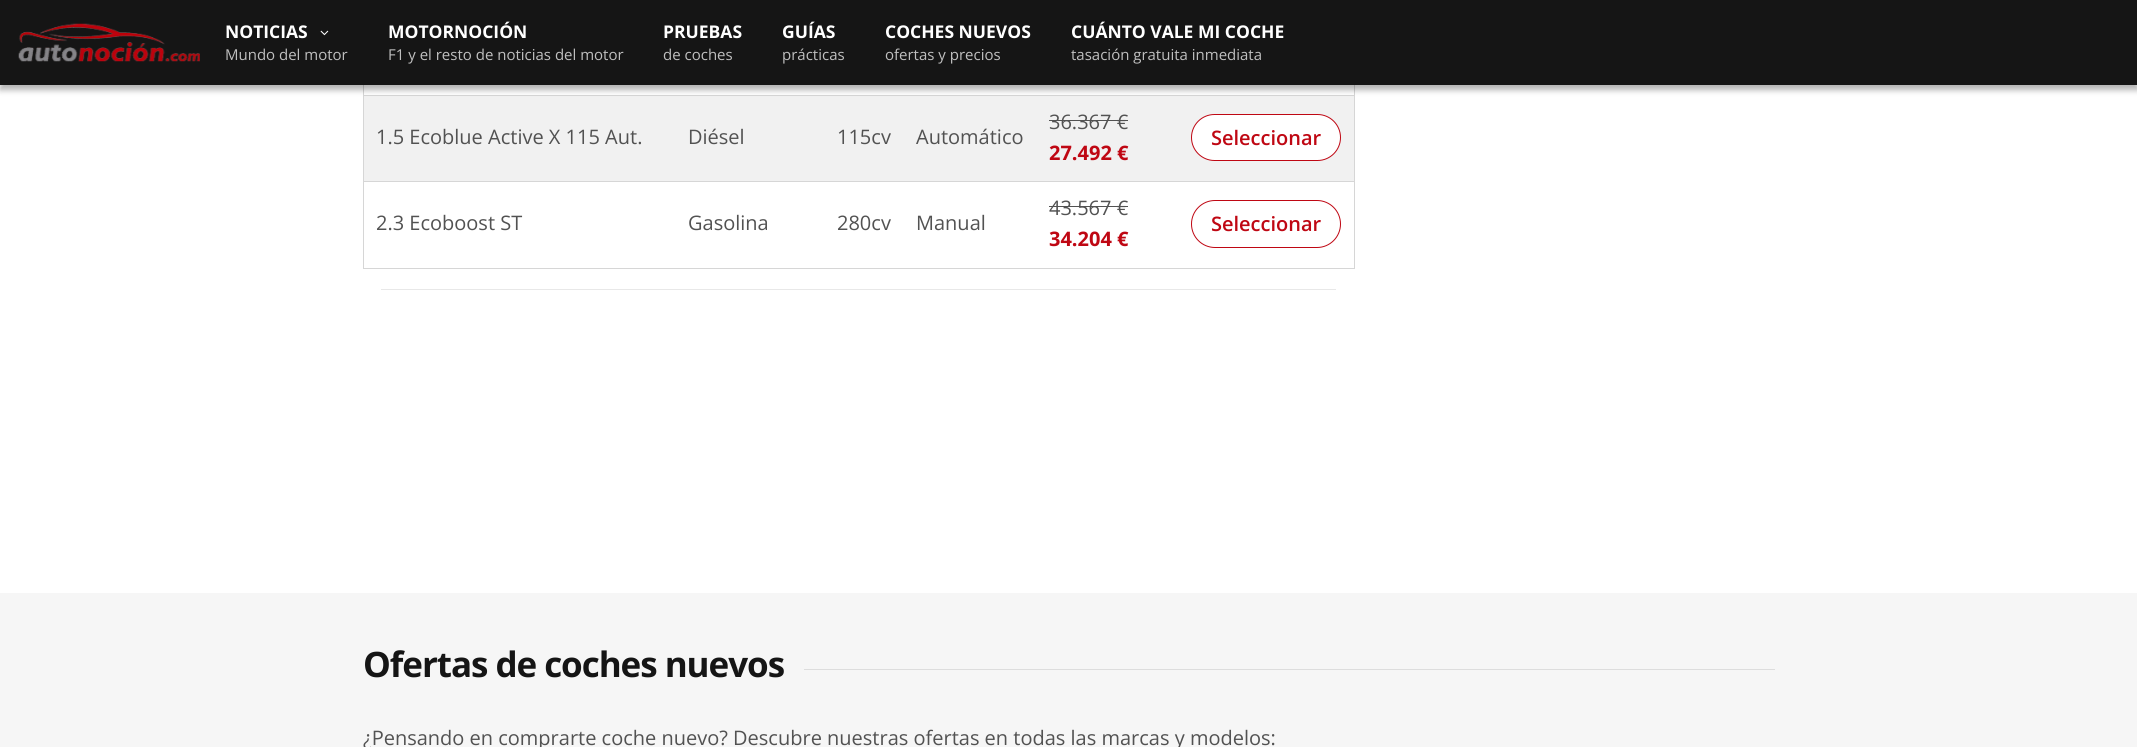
#include <cairo.h>
#include <math.h>
#include <stddef.h>

typedef struct { const char *family; double size; int italic, bold; unsigned color; } style_t;
static cairo_t *ctx;

static void ink(unsigned color) {
    cairo_set_source_rgb(ctx, (color >> 16) / 255.0, (color >> 8 & 255) / 255.0, (color & 255) / 255.0);
}

static void write(double x, double y, const char *s, const style_t *st) {
    cairo_select_font_face(ctx, st->family, st->italic ? CAIRO_FONT_SLANT_ITALIC : CAIRO_FONT_SLANT_NORMAL,
        st->bold ? CAIRO_FONT_WEIGHT_BOLD : CAIRO_FONT_WEIGHT_NORMAL);
    cairo_set_font_size(ctx, st->size);
    ink(st->color);
    cairo_move_to(ctx, x, y);
    cairo_show_text(ctx, s);
}

static void write_spaced(double x, double y, const char *s, double letter, double word) {
    cairo_move_to(ctx, x, y);
    while (*s) {
        char ch[5] = {0};
        int n = 0;
        do ch[n++] = *s++; while ((*s & 0xC0) == 0x80);
        cairo_show_text(ctx, ch);
        cairo_rel_move_to(ctx, letter + word * (*ch == ' '), 0);
    }
}

static void block(double x, double y, double w, double h, unsigned color) {
    ink(color);
    cairo_rectangle(ctx, x, y, w, h);
    cairo_fill(ctx);
}

static void round_path(double x, double y, double w, double h, double r) {
    cairo_new_sub_path(ctx);
    cairo_arc(ctx, x + w - r, y + h - r, r, 0, M_PI / 2);
    cairo_arc(ctx, x + r, y + h - r, r, M_PI / 2, M_PI);
    cairo_arc(ctx, x + r, y + r, r, M_PI, 1.5 * M_PI);
    cairo_arc(ctx, x + w - r, y + r, r, 1.5 * M_PI, 2 * M_PI);
    cairo_close_path(ctx);
}

static void blur_box(double x, double y, double w, double h, double r, double blur, double alpha) {
    cairo_push_group_with_content(ctx, CAIRO_CONTENT_ALPHA);
    cairo_set_operator(ctx, CAIRO_OPERATOR_SOURCE);
    for (int i = 15; i >= -15 && fmin(w, h) + blur * i / 3 > 0; i -= 2) {
        double e = blur * i / 6;
        cairo_set_source_rgba(ctx, 0, 0, 0, alpha * erfc((i - 1) / 8.5) / 2);
        round_path(x - e, y - e, w + 2 * e, h + 2 * e, fmax(0, fmin(r + e + blur * .6, fmin(w, h) / 2 + e)));
        cairo_fill(ctx);
    }
    cairo_pattern_t *soft = cairo_pop_group(ctx);
    cairo_mask(ctx, soft);
    cairo_pattern_destroy(soft);
}

static void paste(const char *path, double x, double y, double w, double h) {
    cairo_surface_t *image = cairo_image_surface_create_from_png(path);
    cairo_save(ctx);
    cairo_set_source_surface(ctx, image, x, y);
    cairo_rectangle(ctx, x, y, w, h);
    cairo_fill(ctx);
    cairo_restore(ctx);
    cairo_surface_destroy(image);
}

static const style_t s1 = {"Open Sans", 17.5, 0, 1, 0xffffff};
static const style_t s2 = {"Open Sans", 15, 0, 0, 0xbfbfbf};
static const style_t s3 = {"Open Sans", 20, 0, 0, 0x525252};
static const style_t s4 = {"Open Sans", 20, 0, 1, 0xbf0713};
static const style_t s5 = {"Open Sans SemiBold", 20, 0, 0, 0xbf0713};

int main(void) {
    cairo_surface_t *surface = cairo_image_surface_create(CAIRO_FORMAT_RGB24, 2137, 747);
    ctx = cairo_create(surface);
    cairo_font_options_t *options = cairo_font_options_create();
    cairo_font_options_set_hint_metrics(options, CAIRO_HINT_METRICS_OFF);
    cairo_font_options_set_hint_style(options, CAIRO_HINT_STYLE_NONE);
    cairo_set_font_options(ctx, options);
    cairo_set_miter_limit(ctx, 4);
    ink(0xffffff);
    cairo_paint(ctx);
    block(1354, 85, 1, 184, 0xd6d6d6);
    block(363, 85, 1, 184, 0xd6d6d6);
    block(363, 95, 992, 1, 0xd6d6d6);
    block(364, 96, 990, 85, 0xf1f1f1);
    ink(0x000000);
    blur_box(0, 5, 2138, 85, 0, 3, 0.3);
    block(0, 0, 2137, 85, 0x151515);
    paste("pic1.png", 18, 23, 182, 39);
    write(225, 38, "NOTICIAS", &s1);
    paste("pic2.png", 320, 30, 9, 6);
    write(225, 60, "Mundo del motor", &s2);
    write(388, 38, "MOTORNOCIÓN", &s1);
    write(388, 60, "F1 y el resto de noticias del motor", &s2);
    write(663, 38, "PRUEBAS", &s1);
    write(663, 60, "de coches", &s2);
    write(782, 38, "GUÍAS", &s1);
    write(782, 60, "prácticas", &s2);
    write(885, 38, "COCHES NUEVOS", &s1);
    write(885, 60, "ofertas y precios", &s2);
    write(1071, 38, "CUÁNTO VALE MI COCHE", &s1);
    write(1071, 60, "tasación gratuita inmediata", &s2);
    block(381, 289, 955, 1, 0xe8e8e8);
    write(376, 144, "1.5 Ecoblue Active X 115 Aut.", &s3);
    write(688, 144, "Diésel", &s3);
    write(837, 144, "115cv", &s3);
    write(916, 144, "Automático", &s3);
    write(1049, 129, "36.367 €", &s3);
    block(1049, 120, 79, 1, 0x525252);
    write(1049, 160, "27.492 €", &s4);
    block(363, 181, 992, 1, 0xd6d6d6);
    ink(0xffffff);
    round_path(1191.5, 114.5, 149, 46, 23);
    cairo_fill_preserve(ctx);
    ink(0xbf0713);
    cairo_set_line_width(ctx, 1);
    cairo_stroke(ctx);
    write(1211, 145, "Seleccionar", &s5);
    write(376, 230, "2.3 Ecoboost ST", &s3);
    write(688, 230, "Gasolina", &s3);
    write(837, 230, "280cv", &s3);
    write(916, 230, "Manual", &s3);
    write(1049, 215, "43.567 €", &s3);
    block(1049, 206, 79, 1, 0x525252);
    write(1049, 246, "34.204 €", &s4);
    block(363, 268, 992, 1, 0xd6d6d6);
    round_path(1191.5, 200.5, 149, 47, 23.5);
    ink(0xbf0713);
    cairo_stroke(ctx);
    write(1211, 231, "Seleccionar", &s5);
    block(0, 593, 2137, 154, 0xf6f6f6);
    block(804, 669, 971, 1, 0xdddddd);
    cairo_select_font_face(ctx, "Open Sans", CAIRO_FONT_SLANT_NORMAL, CAIRO_FONT_WEIGHT_BOLD);
    cairo_set_font_size(ctx, 35);
    ink(0x151515);
    write_spaced(363, 677, "Ofertas de coches nuevos", -1.05, 0);
    write(363, 745, "¿Pensando en comprarte coche nuevo? Descubre nuestras ofertas en todas las marcas y modelos:", &s3);
    cairo_surface_write_to_png(surface, "screenshot.png");
    cairo_font_options_destroy(options);
    cairo_destroy(ctx);
    cairo_surface_destroy(surface);
    return 0;
}
